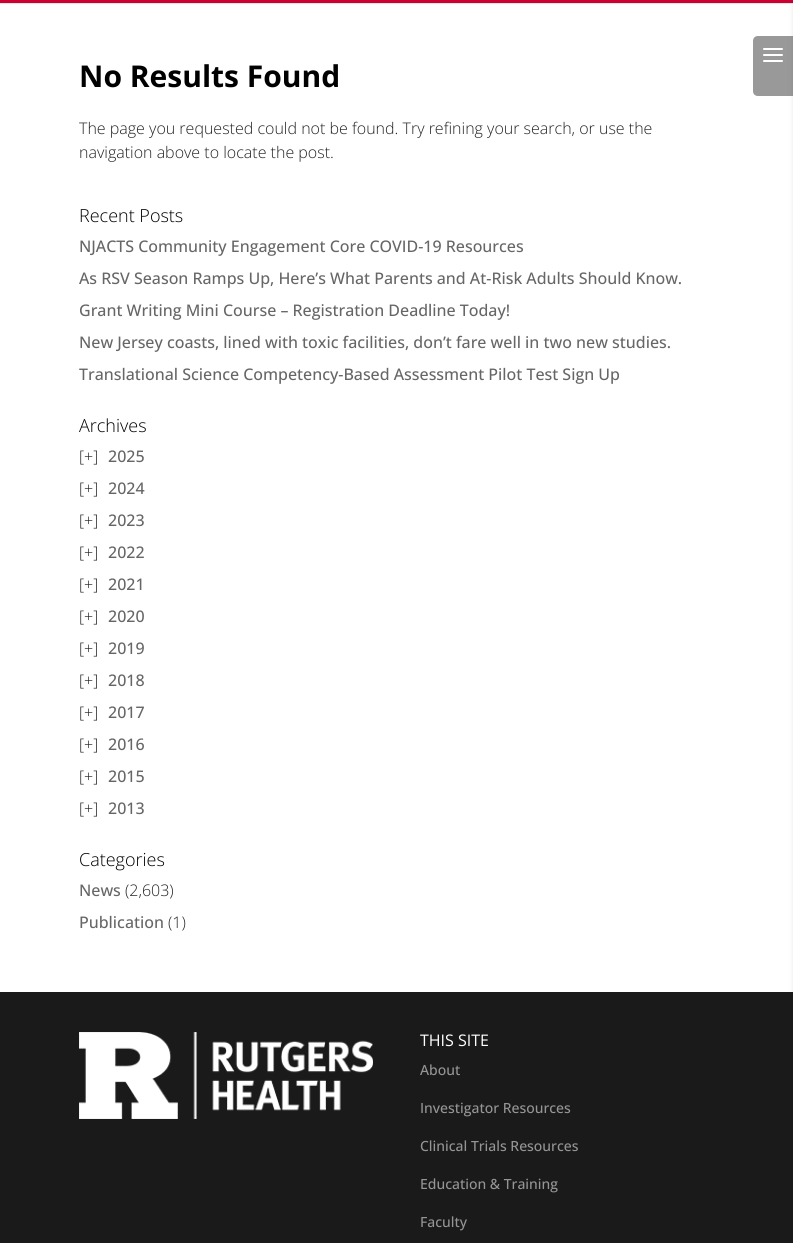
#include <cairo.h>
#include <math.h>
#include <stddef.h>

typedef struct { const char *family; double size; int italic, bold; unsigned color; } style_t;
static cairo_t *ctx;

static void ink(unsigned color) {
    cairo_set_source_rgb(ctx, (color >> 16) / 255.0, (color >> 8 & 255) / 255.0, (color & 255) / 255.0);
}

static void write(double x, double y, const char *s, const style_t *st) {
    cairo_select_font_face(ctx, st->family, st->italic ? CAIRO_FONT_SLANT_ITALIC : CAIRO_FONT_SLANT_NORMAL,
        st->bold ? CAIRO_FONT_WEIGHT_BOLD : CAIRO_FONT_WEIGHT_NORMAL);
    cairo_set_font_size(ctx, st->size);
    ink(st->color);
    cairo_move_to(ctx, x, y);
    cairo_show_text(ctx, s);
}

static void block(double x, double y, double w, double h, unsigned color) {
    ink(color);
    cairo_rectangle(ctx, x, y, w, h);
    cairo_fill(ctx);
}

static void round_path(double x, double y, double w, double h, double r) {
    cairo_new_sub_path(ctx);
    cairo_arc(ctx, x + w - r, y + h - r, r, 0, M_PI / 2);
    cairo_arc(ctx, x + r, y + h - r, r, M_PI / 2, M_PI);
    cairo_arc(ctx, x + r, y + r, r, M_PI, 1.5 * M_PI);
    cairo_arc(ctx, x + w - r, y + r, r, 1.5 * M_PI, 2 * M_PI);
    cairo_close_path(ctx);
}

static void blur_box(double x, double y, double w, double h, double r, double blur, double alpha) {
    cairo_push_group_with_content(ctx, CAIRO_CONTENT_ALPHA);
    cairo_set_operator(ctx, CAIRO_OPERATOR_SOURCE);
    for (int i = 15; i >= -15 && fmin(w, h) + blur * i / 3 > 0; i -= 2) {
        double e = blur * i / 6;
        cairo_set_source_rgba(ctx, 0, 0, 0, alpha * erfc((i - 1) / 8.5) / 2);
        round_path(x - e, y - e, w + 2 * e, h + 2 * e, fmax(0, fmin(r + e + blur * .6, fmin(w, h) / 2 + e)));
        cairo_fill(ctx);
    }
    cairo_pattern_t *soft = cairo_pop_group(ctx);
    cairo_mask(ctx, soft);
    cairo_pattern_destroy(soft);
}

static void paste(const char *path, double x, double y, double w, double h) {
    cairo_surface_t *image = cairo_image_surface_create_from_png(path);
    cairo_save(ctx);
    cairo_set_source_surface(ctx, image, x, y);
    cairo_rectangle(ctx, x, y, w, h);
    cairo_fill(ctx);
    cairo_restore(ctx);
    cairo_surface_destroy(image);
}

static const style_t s1 = {"Open Sans", 30, 0, 1, 0x000000};
static const style_t s2 = {"Open Sans Light", 16, 0, 0, 0x222222};
static const style_t s3 = {"Open Sans Light", 18, 0, 0, 0x000000};
static const style_t s4 = {"Open Sans Medium", 16, 0, 0, 0x666666};
static const style_t s5 = {"Open Sans", 16, 0, 0, 0xffffff};
static const style_t s6 = {"Open Sans Medium", 14, 0, 0, 0x959595};

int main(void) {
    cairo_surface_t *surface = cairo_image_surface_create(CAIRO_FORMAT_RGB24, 793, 1243);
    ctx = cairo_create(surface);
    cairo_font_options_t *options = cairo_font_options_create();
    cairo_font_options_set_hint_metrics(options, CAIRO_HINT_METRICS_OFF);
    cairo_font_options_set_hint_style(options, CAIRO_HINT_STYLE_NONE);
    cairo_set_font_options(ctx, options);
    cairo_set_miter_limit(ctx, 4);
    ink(0xffffff);
    cairo_paint(ctx);
    block(0, 3, 793, 1, 0xe6e6e6);
    block(0, 0, 793, 3, 0xcc0033);
    block(0, 992, 793, 251, 0x1a1a1a);
    ink(0x000000);
    blur_box(793, 2, 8, 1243, 0, 2.5, 0.1);
    cairo_set_source_rgba(ctx, 0, 0, 0, 0.4);
    cairo_new_path(ctx);
    cairo_move_to(ctx, 758, 36);
    cairo_line_to(ctx, 793, 36);
    cairo_line_to(ctx, 793, 96);
    cairo_line_to(ctx, 758, 96);
    cairo_curve_to(ctx, 755, 96, 753, 94, 753, 91);
    cairo_line_to(ctx, 753, 41);
    cairo_curve_to(ctx, 753, 38, 755, 36, 758, 36);
    cairo_close_path(ctx);
    cairo_fill(ctx);
    paste("pic1.png", 763, 48, 20, 14);
    write(79, 87, "No Results Found", &s1);
    write(79, 134, "The page you requested could not be found. Try refining your search, or use the", &s2);
    write(79, 158, "navigation above to locate the post.", &s2);
    write(79, 222, "Recent Posts", &s3);
    write(79, 252, "NJACTS Community Engagement Core COVID-19 Resources", &s4);
    write(79, 284, "As RSV Season Ramps Up, Here’s What Parents and At-Risk Adults Should Know.", &s4);
    write(79, 316, "Grant Writing Mini Course – Registration Deadline Today!", &s4);
    write(79, 348, "New Jersey coasts, lined with toxic facilities, don’t fare well in two new studies.", &s4);
    write(79, 380, "Translational Science Competency-Based Assessment Pilot Test Sign Up", &s4);
    write(79, 432, "Archives", &s3);
    write(79, 462, "[+]", &s2);
    write(108, 462, "2025", &s4);
    write(79, 494, "[+]", &s2);
    write(108, 494, "2024", &s4);
    write(79, 526, "[+]", &s2);
    write(108, 526, "2023", &s4);
    write(79, 558, "[+]", &s2);
    write(108, 558, "2022", &s4);
    write(79, 590, "[+]", &s2);
    write(108, 590, "2021", &s4);
    write(79, 622, "[+]", &s2);
    write(108, 622, "2020", &s4);
    write(79, 654, "[+]", &s2);
    write(108, 654, "2019", &s4);
    write(79, 686, "[+]", &s2);
    write(108, 686, "2018", &s4);
    write(79, 718, "[+]", &s2);
    write(108, 718, "2017", &s4);
    write(79, 750, "[+]", &s2);
    write(108, 750, "2016", &s4);
    write(79, 782, "[+]", &s2);
    write(108, 782, "2015", &s4);
    write(79, 814, "[+]", &s2);
    write(108, 814, "2013", &s4);
    write(79, 866, "Categories", &s3);
    write(79, 896, "News", &s4);
    write(125, 896, "(2,603)", &s2);
    write(79, 928, "Publication", &s4);
    write(168, 928, "(1)", &s2);
    paste("pic2.png", 79, 1032, 294, 87);
    write(420, 1046, "THIS SITE", &s5);
    write(420, 1075, "About", &s6);
    write(420, 1113, "Investigator Resources", &s6);
    write(420, 1151, "Clinical Trials Resources", &s6);
    write(420, 1189, "Education & Training", &s6);
    write(420, 1227, "Faculty", &s6);
    cairo_surface_write_to_png(surface, "screenshot.png");
    cairo_font_options_destroy(options);
    cairo_destroy(ctx);
    cairo_surface_destroy(surface);
    return 0;
}
